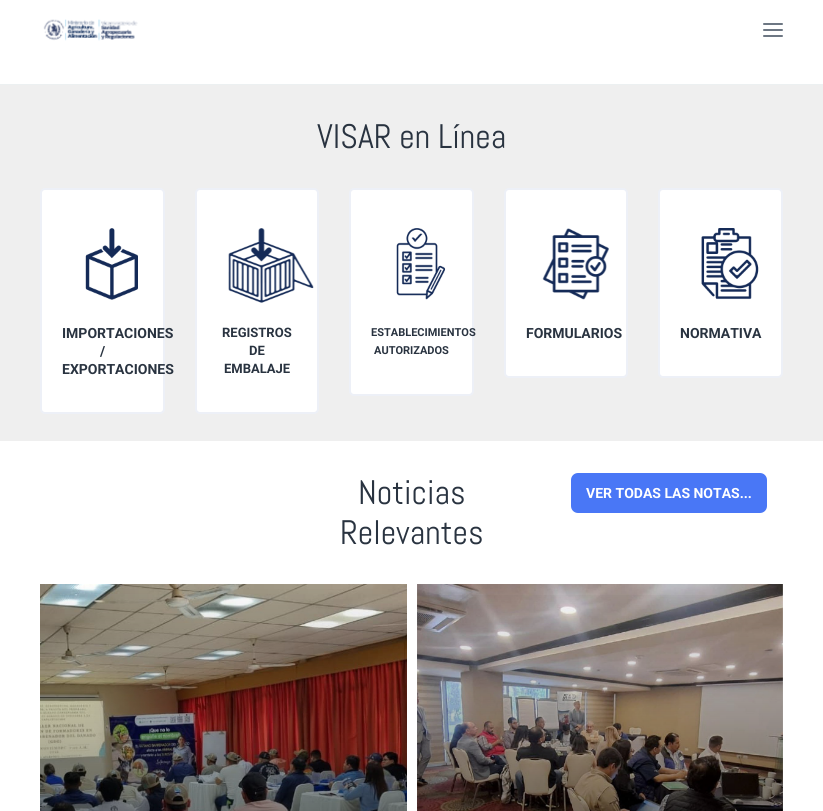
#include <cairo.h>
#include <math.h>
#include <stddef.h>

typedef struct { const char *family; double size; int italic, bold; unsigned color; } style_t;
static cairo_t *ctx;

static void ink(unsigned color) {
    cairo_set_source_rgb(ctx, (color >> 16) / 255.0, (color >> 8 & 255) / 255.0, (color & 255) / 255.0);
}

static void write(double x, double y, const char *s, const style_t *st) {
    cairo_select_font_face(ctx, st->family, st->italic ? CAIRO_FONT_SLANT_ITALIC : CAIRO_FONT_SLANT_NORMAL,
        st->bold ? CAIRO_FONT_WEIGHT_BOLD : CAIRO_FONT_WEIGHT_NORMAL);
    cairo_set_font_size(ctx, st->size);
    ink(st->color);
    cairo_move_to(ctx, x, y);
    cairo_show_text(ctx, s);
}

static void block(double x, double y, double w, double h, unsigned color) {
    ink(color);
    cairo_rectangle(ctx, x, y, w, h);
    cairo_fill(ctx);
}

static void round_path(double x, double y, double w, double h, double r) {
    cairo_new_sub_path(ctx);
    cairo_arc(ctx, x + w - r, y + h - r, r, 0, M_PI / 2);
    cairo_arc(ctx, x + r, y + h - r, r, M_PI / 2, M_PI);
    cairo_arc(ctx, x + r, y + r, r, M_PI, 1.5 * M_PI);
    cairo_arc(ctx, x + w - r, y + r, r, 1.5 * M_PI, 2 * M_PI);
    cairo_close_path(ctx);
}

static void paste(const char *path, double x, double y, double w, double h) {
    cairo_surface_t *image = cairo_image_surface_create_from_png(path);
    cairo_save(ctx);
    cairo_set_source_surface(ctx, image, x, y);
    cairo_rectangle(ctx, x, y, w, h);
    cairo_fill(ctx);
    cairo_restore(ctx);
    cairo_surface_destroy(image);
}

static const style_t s1 = {"Abel", 34, 0, 0, 0x293340};
static const style_t s2 = {"Roboto", 14, 0, 1, 0x293340};
static const style_t s3 = {"Roboto", 13, 0, 1, 0x293340};
static const style_t s4 = {"Roboto", 11, 0, 1, 0x293340};
static const style_t s5 = {"Roboto", 14, 0, 1, 0xffffff};

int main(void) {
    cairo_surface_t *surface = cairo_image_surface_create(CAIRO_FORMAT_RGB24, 823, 811);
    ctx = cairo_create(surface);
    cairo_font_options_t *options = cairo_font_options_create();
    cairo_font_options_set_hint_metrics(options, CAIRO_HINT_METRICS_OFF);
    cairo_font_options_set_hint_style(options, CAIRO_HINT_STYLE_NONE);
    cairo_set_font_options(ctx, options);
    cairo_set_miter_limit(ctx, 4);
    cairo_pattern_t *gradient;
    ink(0xffffff);
    cairo_paint(ctx);
    paste("pic1.png", 43, 19, 95, 22);
    ink(0x6d7783);
    round_path(763, 29, 20, 2, 1);
    cairo_fill(ctx);
    round_path(763, 23, 20, 2, 1);
    cairo_fill(ctx);
    round_path(763, 35, 20, 2, 1);
    cairo_fill(ctx);
    block(0, 84, 823, 1, 0xecf0f1);
    block(0, 85, 823, 356, 0xefefef);
    write(317, 148, "VISAR en Línea", &s1);
    ink(0xffffff);
    round_path(41, 189, 123, 224, 4);
    cairo_fill_preserve(ctx);
    ink(0xedf0f7);
    cairo_stroke(ctx);
    paste("pic2.png", 85, 228, 53, 72);
    write(62, 338, "IMPORTACIONES", &s2);
    write(100, 356, "/", &s2);
    write(62, 374, "EXPORTACIONES", &s2);
    ink(0xffffff);
    round_path(196, 189, 122, 224, 4);
    cairo_fill_preserve(ctx);
    ink(0xedf0f7);
    cairo_stroke(ctx);
    paste("pic3.png", 228, 228, 86, 75);
    write(222, 337, "REGISTROS", &s3);
    write(249, 355, "DE", &s3);
    write(224, 373, "EMBALAJE", &s3);
    ink(0xffffff);
    round_path(350, 189, 123, 206, 4);
    cairo_fill_preserve(ctx);
    ink(0xedf0f7);
    cairo_stroke(ctx);
    paste("pic4.png", 396, 228, 50, 72);
    write(371, 336, "ESTABLECIMIENTOS", &s4);
    write(374, 354, "AUTORIZADOS", &s4);
    ink(0xffffff);
    round_path(505, 189, 122, 188, 4);
    cairo_fill_preserve(ctx);
    ink(0xedf0f7);
    cairo_stroke(ctx);
    paste("pic5.png", 542, 228, 67, 72);
    write(526, 338, "FORMULARIOS", &s2);
    ink(0xffffff);
    round_path(659, 189, 123, 188, 4);
    cairo_fill_preserve(ctx);
    ink(0xedf0f7);
    cairo_stroke(ctx);
    paste("pic6.png", 701, 228, 58, 72);
    write(680, 338, "NORMATIVA", &s2);
    write(358, 504, "Noticias", &s1);
    write(340, 544, "Relevantes", &s1);
    ink(0x4977f6);
    round_path(571, 473, 196, 40, 7);
    cairo_fill(ctx);
    write(586, 498, "VER TODAS LAS NOTAS...", &s5);
    paste("pic7.png", 40, 584, 367, 227);
    paste("pic8.png", 417, 584, 366, 227);
    gradient = cairo_pattern_create_linear(600, 584, 600, 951);
    cairo_pattern_add_color_stop_rgba(gradient, 0, 0, 0, 0, 0);
    cairo_pattern_add_color_stop_rgba(gradient, 0.85, 0, 0, 0, 0.6);
    cairo_pattern_add_color_stop_rgba(gradient, 1, 0, 0, 0, 0.6);
    cairo_set_source(ctx, gradient);
    cairo_pattern_destroy(gradient);
    cairo_rectangle(ctx, 417, 595, 366, 216);
    cairo_fill(ctx);
    cairo_surface_write_to_png(surface, "screenshot.png");
    cairo_font_options_destroy(options);
    cairo_destroy(ctx);
    cairo_surface_destroy(surface);
    return 0;
}
